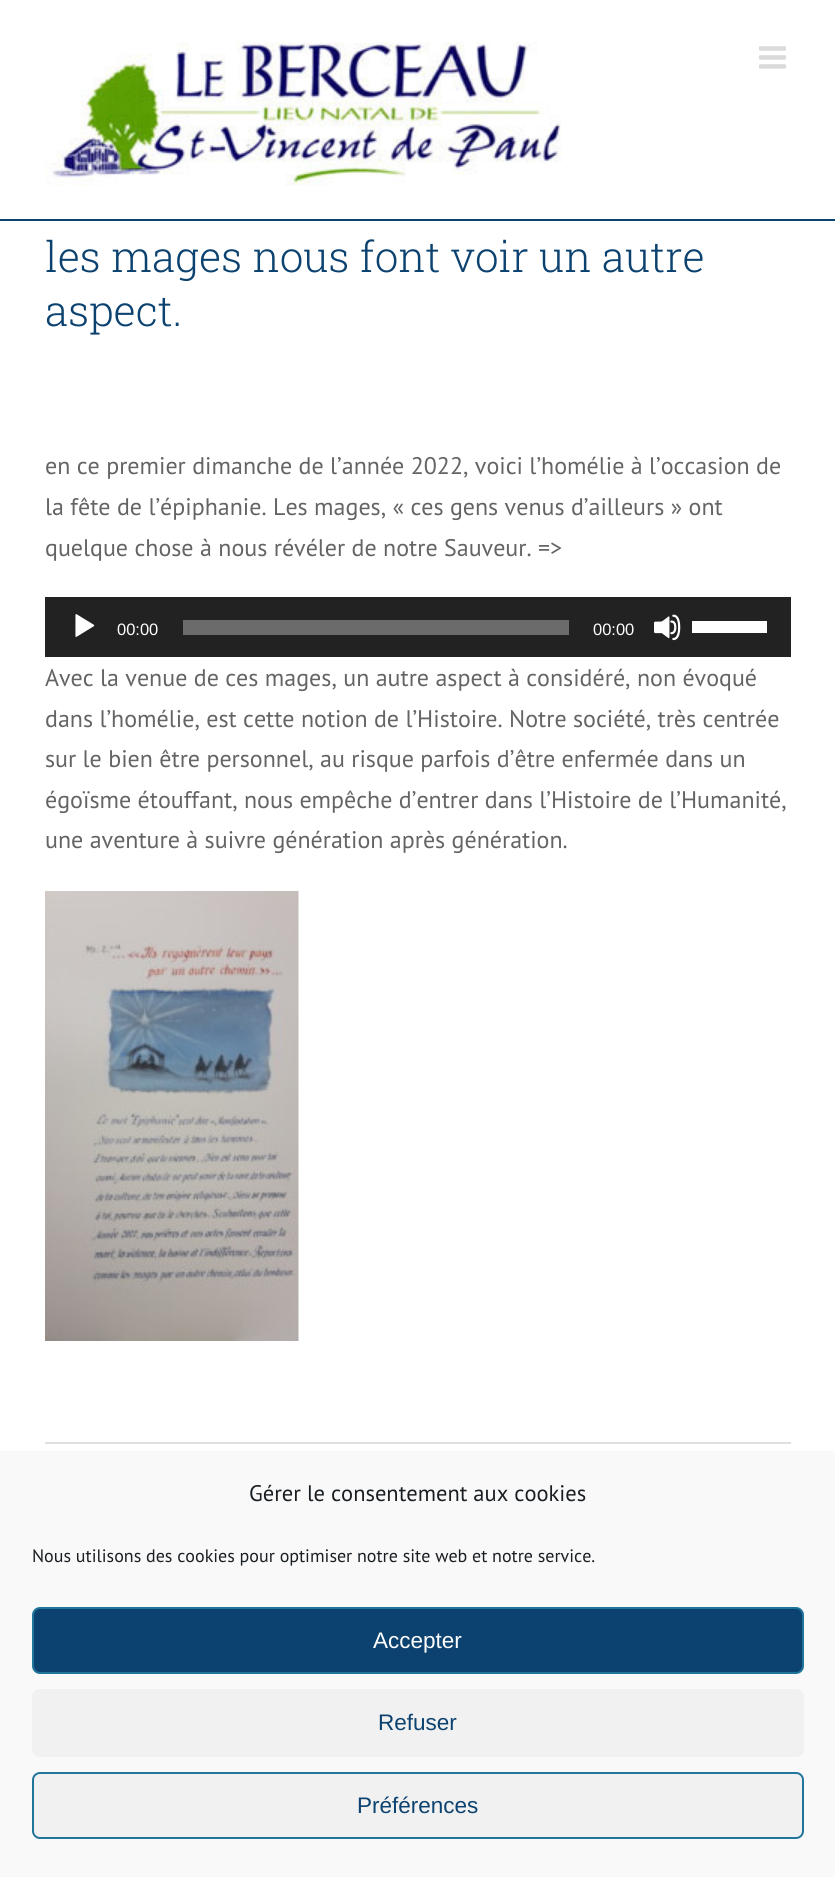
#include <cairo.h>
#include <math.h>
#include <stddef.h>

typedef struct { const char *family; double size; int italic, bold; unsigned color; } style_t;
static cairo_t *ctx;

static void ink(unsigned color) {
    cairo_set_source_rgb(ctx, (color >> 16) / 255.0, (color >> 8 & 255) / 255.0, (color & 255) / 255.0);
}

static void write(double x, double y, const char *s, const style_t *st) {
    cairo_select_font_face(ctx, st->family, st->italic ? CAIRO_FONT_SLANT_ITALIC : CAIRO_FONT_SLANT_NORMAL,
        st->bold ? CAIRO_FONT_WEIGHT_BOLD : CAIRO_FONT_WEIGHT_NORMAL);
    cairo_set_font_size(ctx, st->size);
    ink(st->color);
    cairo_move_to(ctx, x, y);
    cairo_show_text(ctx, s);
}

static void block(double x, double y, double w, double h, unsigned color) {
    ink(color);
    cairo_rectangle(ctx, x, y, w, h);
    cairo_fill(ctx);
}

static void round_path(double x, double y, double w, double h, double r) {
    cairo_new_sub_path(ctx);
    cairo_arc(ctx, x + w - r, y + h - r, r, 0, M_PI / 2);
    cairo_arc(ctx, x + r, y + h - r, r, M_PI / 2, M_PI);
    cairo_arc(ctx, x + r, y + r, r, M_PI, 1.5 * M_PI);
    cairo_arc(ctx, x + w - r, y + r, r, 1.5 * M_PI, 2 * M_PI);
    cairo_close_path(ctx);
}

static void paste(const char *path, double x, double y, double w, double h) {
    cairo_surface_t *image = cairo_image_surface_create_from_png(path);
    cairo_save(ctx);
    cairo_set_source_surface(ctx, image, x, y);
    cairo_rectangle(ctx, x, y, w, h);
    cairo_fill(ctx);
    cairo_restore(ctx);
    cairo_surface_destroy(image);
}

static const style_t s1 = {"Roboto Slab Light", 42.3, 0, 0, 0x0c426f};
static const style_t s2 = {"PT Sans", 24, 0, 0, 0x646464};
static const style_t s3 = {"Liberation Sans", 16.5, 0, 0, 0xffffff};
static const style_t s4 = {"PT Sans", 22.5, 0, 0, 0x191e23};
static const style_t s5 = {"PT Sans", 18, 0, 0, 0x191e23};
static const style_t s6 = {"Liberation Sans", 22.5, 0, 0, 0xffffff};
static const style_t s7 = {"Liberation Sans", 22.5, 0, 0, 0x0c426f};

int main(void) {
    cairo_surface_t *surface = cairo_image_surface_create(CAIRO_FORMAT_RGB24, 835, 1877);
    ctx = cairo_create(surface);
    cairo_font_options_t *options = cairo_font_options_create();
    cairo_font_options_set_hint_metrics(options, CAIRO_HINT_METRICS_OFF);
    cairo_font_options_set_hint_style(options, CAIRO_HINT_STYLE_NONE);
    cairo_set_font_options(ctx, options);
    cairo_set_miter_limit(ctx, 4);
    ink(0xffffff);
    cairo_paint(ctx);
    block(0, 219, 835, 2, 0x0c426f);
    paste("pic1.png", 45, 42, 517, 144);
    paste("pic2.png", 759, 46, 27, 23);
    write(45, 272, "les mages nous font voir un autre", &s1);
    write(45, 326, "aspect.", &s1);
    write(45, 474, "en ce premier dimanche de l’année 2022, voici l’homélie à l’occasion de", &s2);
    write(45, 515, "la fête de l’épiphanie. Les mages, « ces gens venus d’ailleurs » ont", &s2);
    write(45, 556, "quelque chose à nous révéler de notre Sauveur. =>", &s2);
    block(45, 597, 746, 60, 0x222222);
    paste("pic3.png", 75, 614, 20, 23);
    write(117, 635, "00:00", &s3);
    block(183, 620, 386, 15, 0x6b6b6b);
    write(593, 635, "00:00", &s3);
    paste("pic4.png", 654, 614, 27, 27);
    block(692, 621, 75, 12, 0xffffff);
    write(45, 686, "Avec la venue de ces mages, un autre aspect à considéré, non évoqué", &s2);
    write(45, 727, "dans l’homélie, est cette notion de l’Histoire. Notre société, très centrée", &s2);
    write(45, 767, "sur le bien être personnel, au risque parfois d’être enfermée dans un", &s2);
    write(45, 808, "égoïsme étouffant, nous empêche d’entrer dans l’Histoire de l’Humanité,", &s2);
    write(45, 848, "une aventure à suivre génération après génération.", &s2);
    paste("pic5.png", 45, 891, 254, 450);
    block(45, 1442, 746, 2, 0xe0dede);
    block(0, 1451, 835, 426, 0xf9f9f9);
    write(249, 1501, "Gérer le consentement aux cookies", &s4);
    write(32, 1562, "Nous utilisons des cookies pour optimiser notre site web et notre service.", &s5);
    ink(0x0c426f);
    round_path(33, 1608, 770, 65, 7);
    cairo_fill_preserve(ctx);
    ink(0x21759b);
    cairo_stroke(ctx);
    write(373, 1648, "Accepter", &s6);
    ink(0xf1f1f1);
    round_path(32, 1689, 772, 68, 8);
    cairo_fill(ctx);
    write(378, 1730, "Refuser", &s7);
    ink(0xf1f1f1);
    round_path(33, 1773, 770, 65, 7);
    cairo_fill_preserve(ctx);
    ink(0x21759b);
    cairo_stroke(ctx);
    write(357, 1813, "Préférences", &s7);
    cairo_surface_write_to_png(surface, "screenshot.png");
    cairo_font_options_destroy(options);
    cairo_destroy(ctx);
    cairo_surface_destroy(surface);
    return 0;
}
